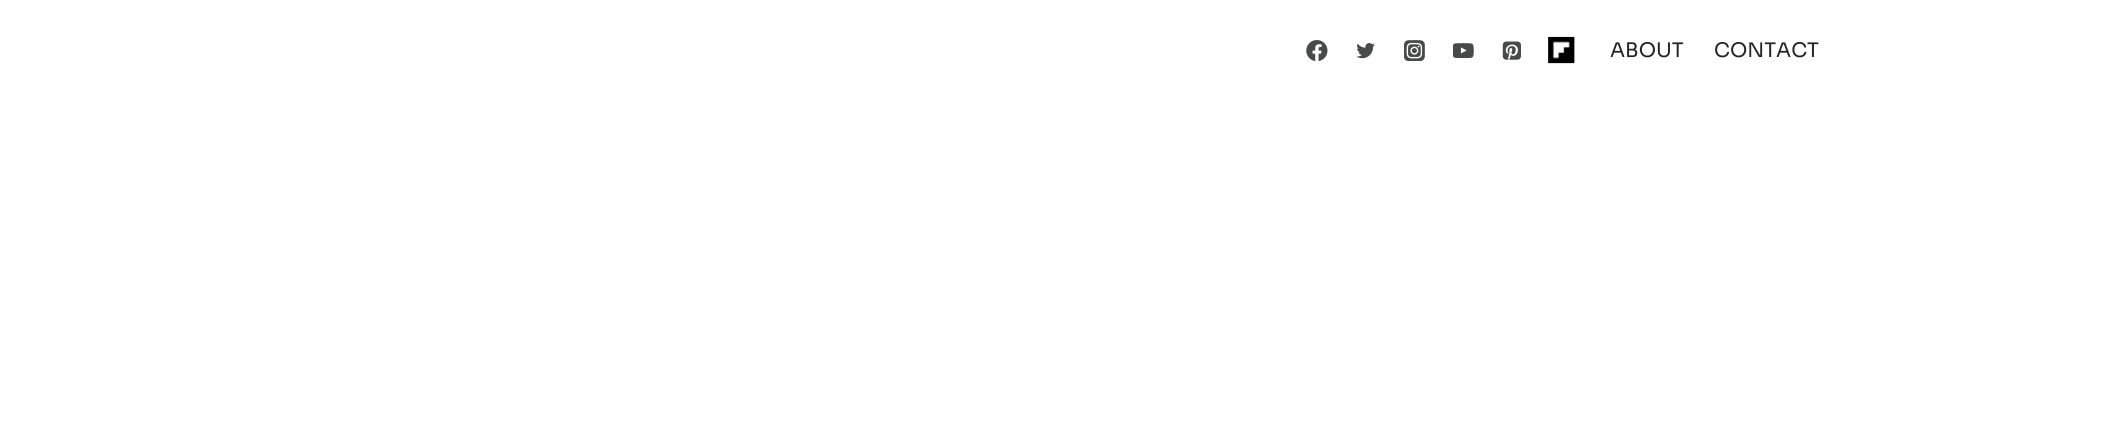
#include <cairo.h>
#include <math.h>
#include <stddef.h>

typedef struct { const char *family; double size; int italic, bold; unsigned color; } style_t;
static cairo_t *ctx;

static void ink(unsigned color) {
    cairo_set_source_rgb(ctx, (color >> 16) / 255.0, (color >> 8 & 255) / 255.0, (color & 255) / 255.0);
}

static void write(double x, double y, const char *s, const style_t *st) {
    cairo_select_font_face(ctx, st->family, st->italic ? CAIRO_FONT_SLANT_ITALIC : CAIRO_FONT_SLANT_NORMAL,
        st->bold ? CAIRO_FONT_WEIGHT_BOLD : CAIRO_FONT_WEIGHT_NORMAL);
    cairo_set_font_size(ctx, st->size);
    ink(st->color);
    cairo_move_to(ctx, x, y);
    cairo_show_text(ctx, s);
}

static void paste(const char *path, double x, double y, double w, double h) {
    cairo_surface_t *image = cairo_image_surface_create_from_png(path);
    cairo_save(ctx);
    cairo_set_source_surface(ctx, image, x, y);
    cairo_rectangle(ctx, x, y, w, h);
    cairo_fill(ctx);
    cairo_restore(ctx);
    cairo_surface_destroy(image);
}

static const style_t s1 = {"Sora", 20, 0, 0, 0x232424};

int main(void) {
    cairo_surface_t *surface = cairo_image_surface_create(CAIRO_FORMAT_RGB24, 2114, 446);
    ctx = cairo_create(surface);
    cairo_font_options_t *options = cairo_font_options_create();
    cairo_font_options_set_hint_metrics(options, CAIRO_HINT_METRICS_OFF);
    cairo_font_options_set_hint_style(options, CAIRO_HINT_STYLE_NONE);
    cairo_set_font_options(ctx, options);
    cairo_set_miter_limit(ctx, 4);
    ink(0xffffff);
    cairo_paint(ctx);
    paste("pic1.png", 1306, 40, 22, 21);
    paste("pic2.png", 1356, 43, 19, 16);
    paste("pic3.png", 1404, 40, 21, 21);
    paste("pic4.png", 1453, 43, 21, 16);
    paste("pic5.png", 1502, 41, 19, 19);
    paste("pic6.png", 1548, 36, 27, 28);
    write(1610, 57, "ABOUT", &s1);
    write(1714, 57, "CONTACT", &s1);
    cairo_surface_write_to_png(surface, "screenshot.png");
    cairo_font_options_destroy(options);
    cairo_destroy(ctx);
    cairo_surface_destroy(surface);
    return 0;
}
